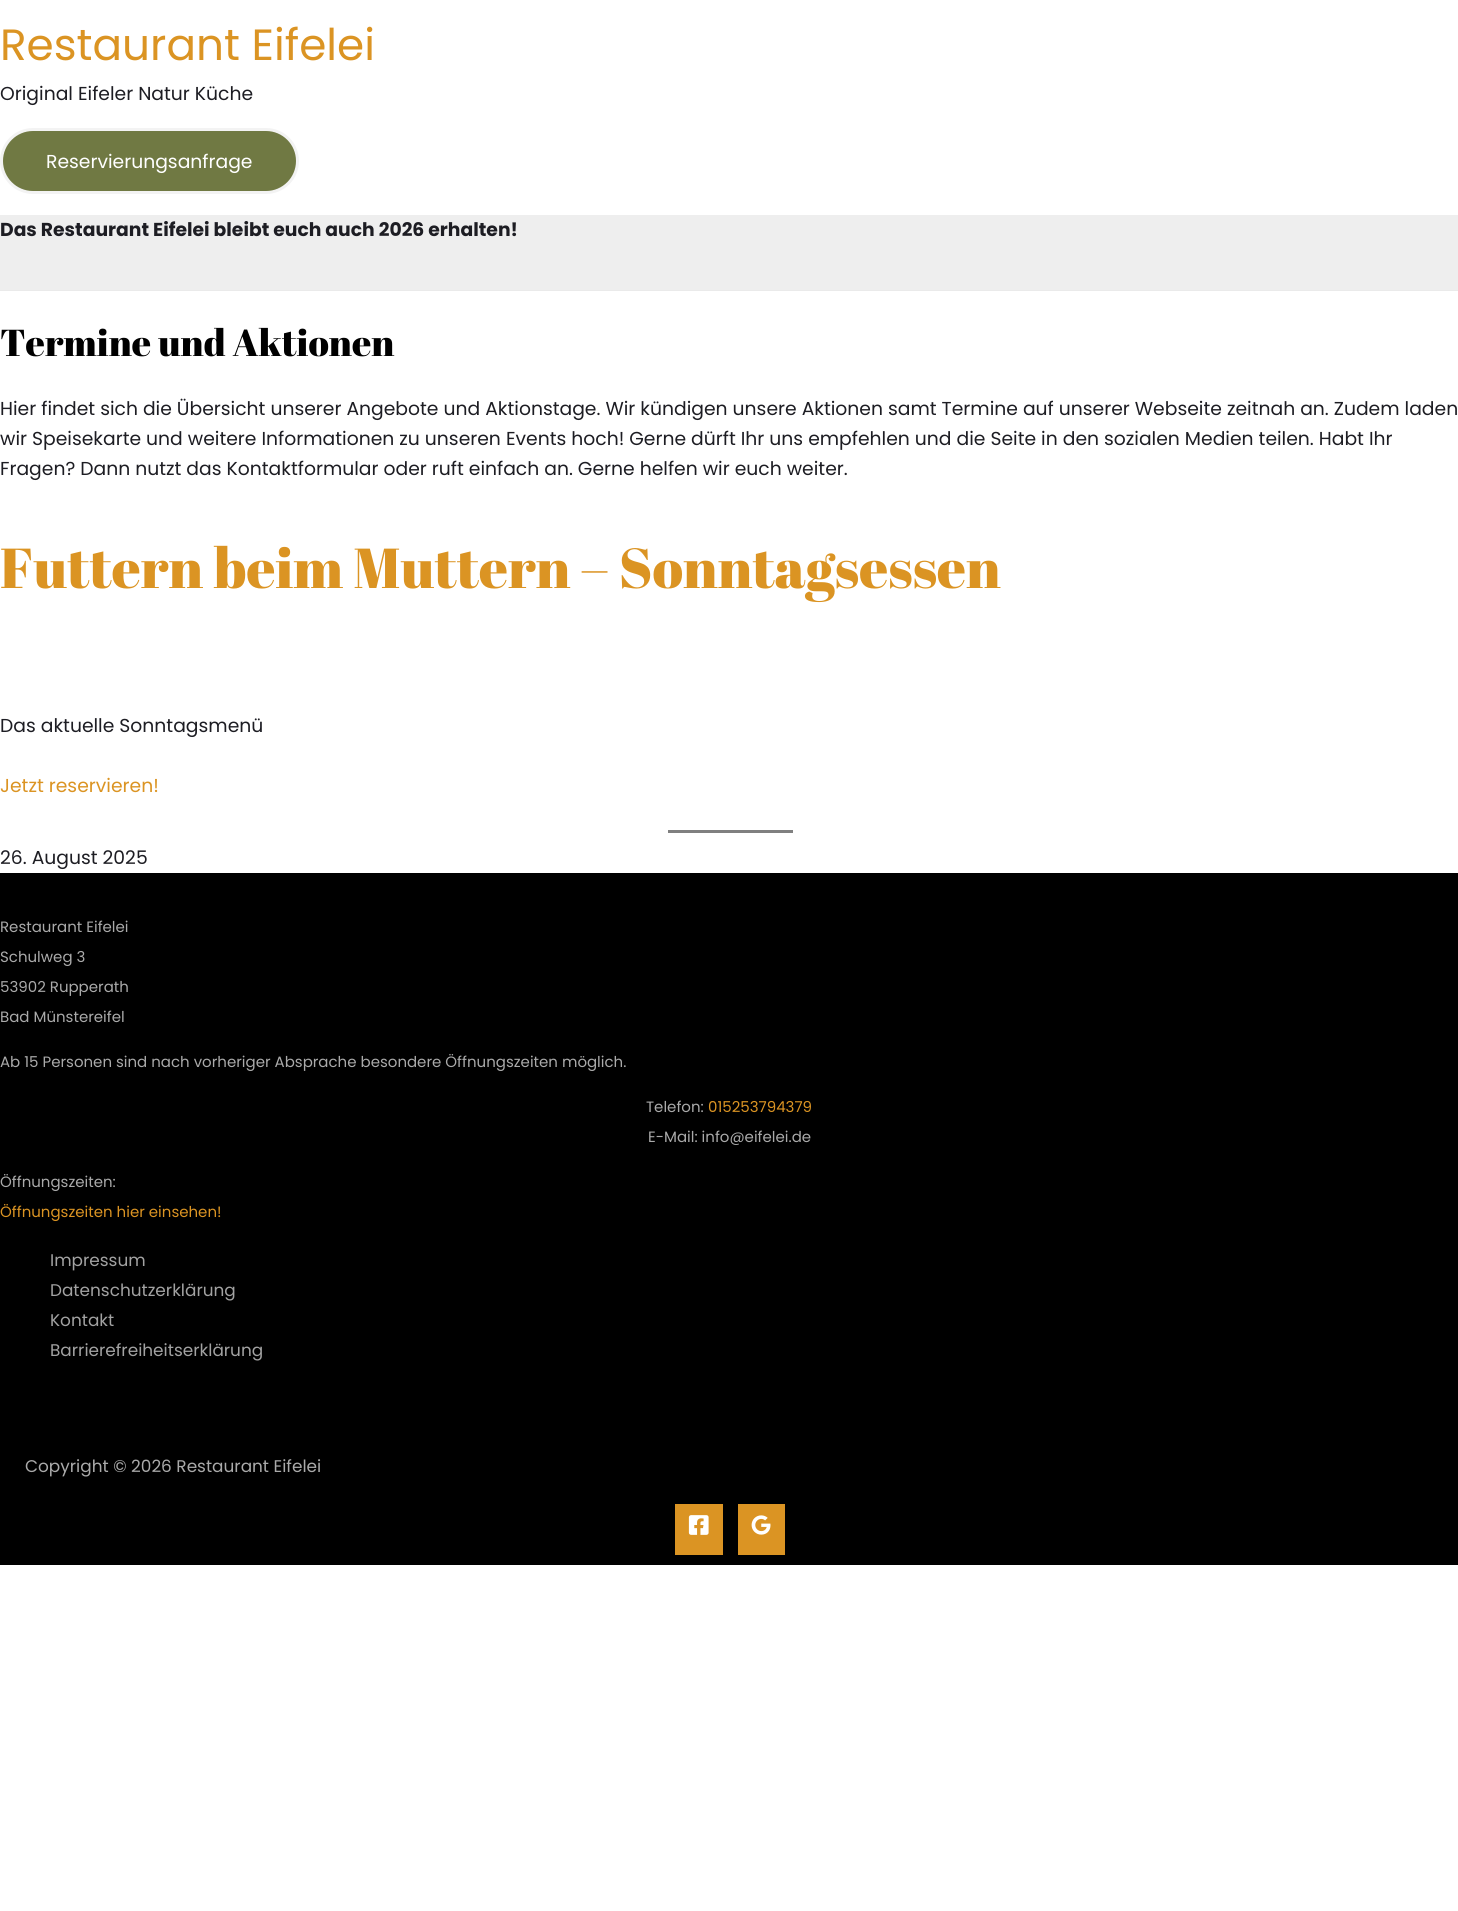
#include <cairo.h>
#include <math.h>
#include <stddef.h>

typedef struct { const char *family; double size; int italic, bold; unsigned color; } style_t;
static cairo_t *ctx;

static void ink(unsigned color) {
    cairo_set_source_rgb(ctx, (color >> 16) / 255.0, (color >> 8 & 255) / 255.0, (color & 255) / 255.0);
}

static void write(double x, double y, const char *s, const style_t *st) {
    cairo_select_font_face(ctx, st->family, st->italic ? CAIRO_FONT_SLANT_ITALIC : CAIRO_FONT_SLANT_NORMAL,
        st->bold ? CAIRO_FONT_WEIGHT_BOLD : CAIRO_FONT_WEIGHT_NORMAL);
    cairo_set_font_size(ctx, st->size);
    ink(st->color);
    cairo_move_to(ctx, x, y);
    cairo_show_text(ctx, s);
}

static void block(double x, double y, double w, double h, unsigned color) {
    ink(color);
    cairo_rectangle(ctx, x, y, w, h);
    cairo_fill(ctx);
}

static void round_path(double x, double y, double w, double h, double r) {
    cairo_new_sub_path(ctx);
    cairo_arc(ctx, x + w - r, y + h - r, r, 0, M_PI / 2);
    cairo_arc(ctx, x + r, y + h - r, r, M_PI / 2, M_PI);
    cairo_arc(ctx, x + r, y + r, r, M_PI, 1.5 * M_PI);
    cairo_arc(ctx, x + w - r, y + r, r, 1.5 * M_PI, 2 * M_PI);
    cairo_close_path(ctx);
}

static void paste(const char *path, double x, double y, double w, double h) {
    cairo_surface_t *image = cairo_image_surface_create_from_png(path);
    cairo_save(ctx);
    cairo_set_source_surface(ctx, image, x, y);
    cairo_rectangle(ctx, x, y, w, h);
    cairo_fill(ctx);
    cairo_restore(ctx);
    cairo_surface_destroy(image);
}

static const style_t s1 = {"Poppins", 43.75, 0, 0, 0xdb9423};
static const style_t s2 = {"Poppins", 18.75, 0, 0, 0x1d1d23};
static const style_t s3 = {"Poppins", 18.75, 0, 0, 0xffffff};
static const style_t s4 = {"Poppins", 18.75, 0, 1, 0x1d1d23};
static const style_t s5 = {"Abril Fatface", 37.5, 0, 0, 0x000000};
static const style_t s6 = {"Abril Fatface", 56.25, 0, 0, 0xdb9423};
static const style_t s7 = {"Poppins", 18.75, 0, 0, 0xdb9423};
static const style_t s8 = {"Poppins", 15, 0, 0, 0xaaaaaa};
static const style_t s9 = {"Poppins", 15, 0, 0, 0xdb9423};
static const style_t s10 = {"Poppins", 16.9, 0, 0, 0xa2a2a2};
static const style_t s11 = {"Poppins", 16.9, 0, 0, 0xaaaaaa};

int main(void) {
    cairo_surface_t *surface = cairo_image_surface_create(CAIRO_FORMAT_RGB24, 1458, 1911);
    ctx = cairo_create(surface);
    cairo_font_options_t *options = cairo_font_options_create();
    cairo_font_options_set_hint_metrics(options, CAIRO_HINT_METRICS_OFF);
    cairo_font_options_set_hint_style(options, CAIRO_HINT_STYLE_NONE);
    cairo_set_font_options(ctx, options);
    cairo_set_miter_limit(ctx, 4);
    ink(0xffffff);
    cairo_paint(ctx);
    write(0, 60, "Restaurant Eifelei", &s1);
    write(0, 100, "Original Eifeler Natur Küche", &s2);
    ink(0x707943);
    round_path(1.5, 129.5, 296, 63, 31.5);
    cairo_fill_preserve(ctx);
    ink(0xf3f3f3);
    cairo_set_line_width(ctx, 3);
    cairo_stroke(ctx);
    write(46, 168, "Reservierungsanfrage", &s3);
    block(0, 215, 1458, 75, 0xeeeeee);
    block(0, 290, 1458, 1, 0xeaeaea);
    write(0, 236, "Das Restaurant Eifelei bleibt euch auch 2026 erhalten!", &s4);
    write(0, 356, "Termine und Aktionen", &s5);
    write(0, 415, "Hier findet sich die Übersicht unserer Angebote und Aktionstage. Wir kündigen unsere Aktionen samt Termine auf unserer Webseite zeitnah an. Zudem laden", &s2);
    write(0, 445, "wir Speisekarte und weitere Informationen zu unseren Events hoch! Gerne dürft Ihr uns empfehlen und die Seite in den sozialen Medien teilen. Habt Ihr", &s2);
    write(0, 475, "Fragen? Dann nutzt das Kontaktformular oder ruft einfach an. Gerne helfen wir euch weiter.", &s2);
    write(0, 588, "Futtern beim Muttern – Sonntagsessen", &s6);
    write(0, 732, "Das aktuelle Sonntagsmenü", &s2);
    write(0, 792, "Jetzt reservieren!", &s7);
    block(668, 830, 125, 3, 0x808080);
    write(0, 864, "26. August 2025", &s2);
    block(0, 873, 1458, 692, 0x000000);
    write(0, 932, "Restaurant Eifelei", &s8);
    write(0, 962, "Schulweg 3", &s8);
    write(0, 992, "53902 Rupperath", &s8);
    write(0, 1022, "Bad Münstereifel", &s8);
    write(0, 1067, "Ab 15 Personen sind nach vorheriger Absprache besondere Öffnungszeiten möglich.", &s8);
    write(646, 1112, "Telefon:", &s8);
    write(708, 1112, "015253794379", &s9);
    write(648, 1142, "E-Mail: info@eifelei.de", &s8);
    write(0, 1187, "Öffnungszeiten:", &s8);
    write(0, 1217, "Öffnungszeiten hier einsehen!", &s9);
    write(50, 1266, "Impressum", &s10);
    write(50, 1296, "Datenschutzerklärung", &s10);
    write(50, 1326, "Kontakt", &s10);
    write(50, 1356, "Barrierefreiheitserklärung", &s10);
    write(25, 1472, "Copyright © 2026 Restaurant Eifelei", &s11);
    block(675, 1504, 48, 51, 0xdb9423);
    block(738, 1504, 47, 51, 0xdb9423);
    paste("pic1.png", 688, 1515, 21, 20);
    paste("pic2.png", 751, 1515, 20, 20);
    cairo_surface_write_to_png(surface, "screenshot.png");
    cairo_font_options_destroy(options);
    cairo_destroy(ctx);
    cairo_surface_destroy(surface);
    return 0;
}
